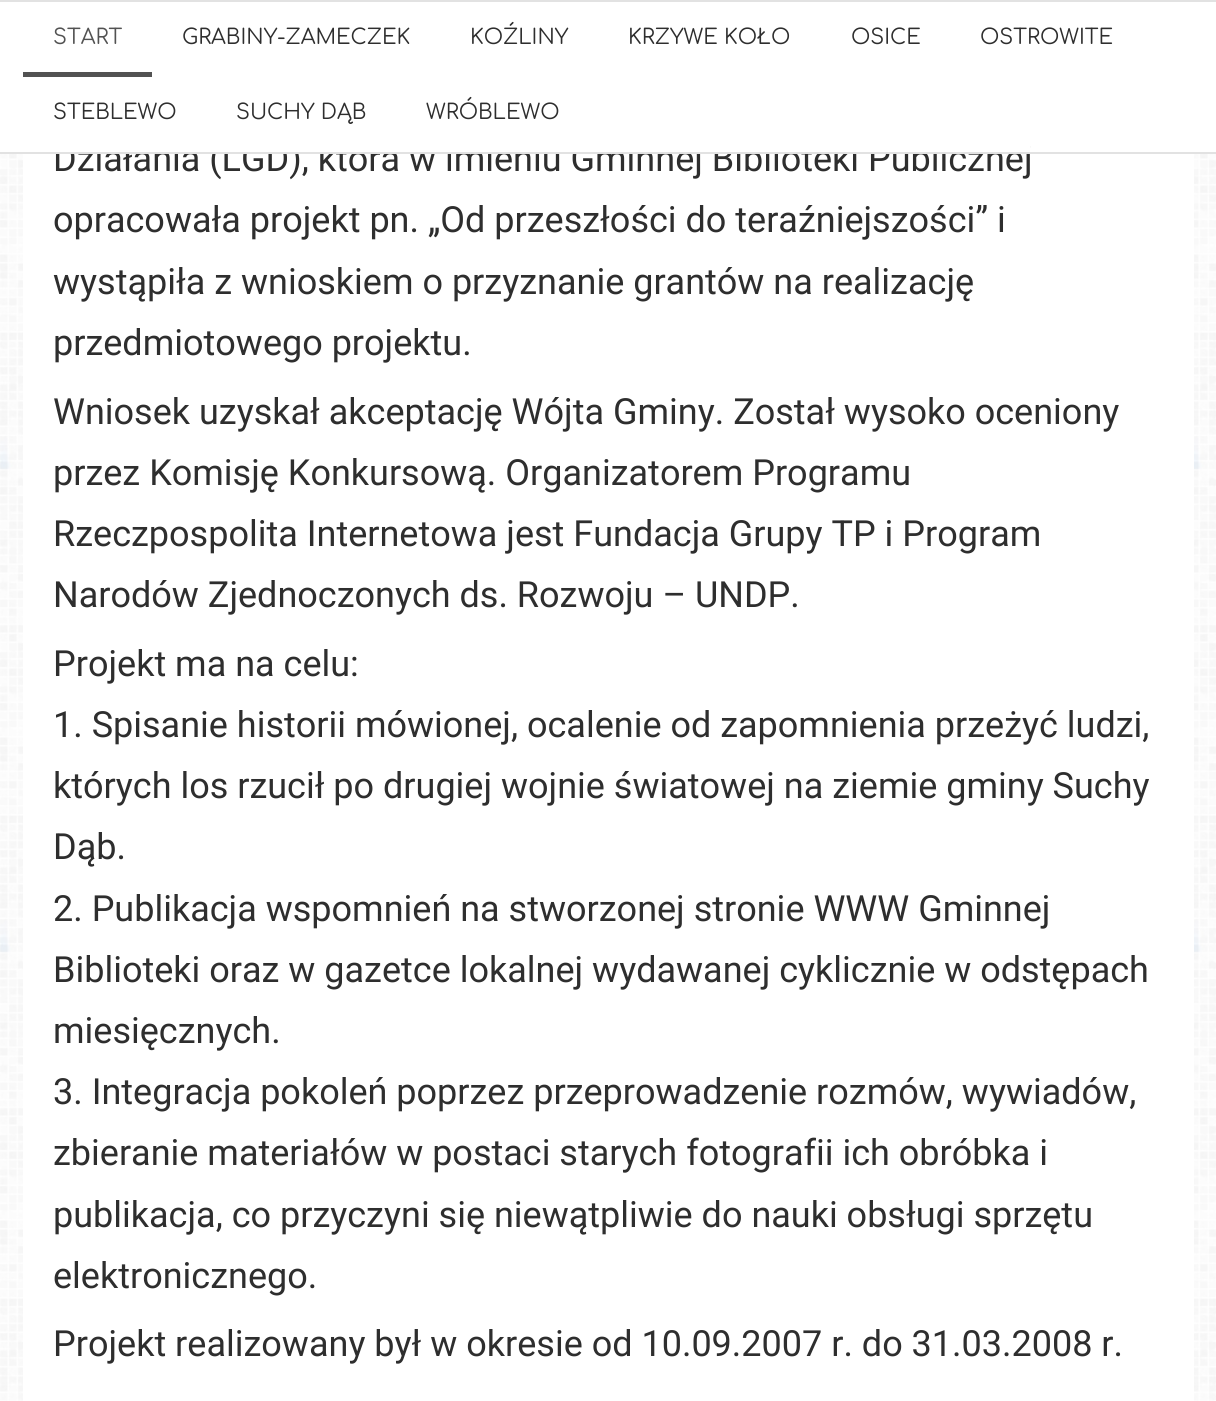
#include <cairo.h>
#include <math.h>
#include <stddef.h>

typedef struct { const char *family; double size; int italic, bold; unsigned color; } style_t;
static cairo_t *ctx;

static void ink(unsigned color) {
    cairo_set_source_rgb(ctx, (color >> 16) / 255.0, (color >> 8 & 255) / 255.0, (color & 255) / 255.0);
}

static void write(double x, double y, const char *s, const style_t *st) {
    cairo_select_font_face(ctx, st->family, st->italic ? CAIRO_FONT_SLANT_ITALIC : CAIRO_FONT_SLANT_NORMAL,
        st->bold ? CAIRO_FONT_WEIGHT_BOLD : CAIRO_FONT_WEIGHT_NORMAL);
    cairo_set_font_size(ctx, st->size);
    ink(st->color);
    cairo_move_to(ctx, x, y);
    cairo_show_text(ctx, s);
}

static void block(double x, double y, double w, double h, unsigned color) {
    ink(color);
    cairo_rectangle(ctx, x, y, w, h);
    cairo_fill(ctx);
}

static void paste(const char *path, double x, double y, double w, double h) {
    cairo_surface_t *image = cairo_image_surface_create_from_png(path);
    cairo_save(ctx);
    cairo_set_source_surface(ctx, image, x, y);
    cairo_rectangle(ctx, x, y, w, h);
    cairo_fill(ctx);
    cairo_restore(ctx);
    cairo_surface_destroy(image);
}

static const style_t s1 = {"Roboto", 36, 0, 0, 0x2e2e2e};
static const style_t s2 = {"Comfortaa", 21, 0, 0, 0x525252};
static const style_t s3 = {"Comfortaa", 21, 0, 0, 0x2e2e2e};

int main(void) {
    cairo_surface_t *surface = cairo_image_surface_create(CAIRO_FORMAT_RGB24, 1216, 1401);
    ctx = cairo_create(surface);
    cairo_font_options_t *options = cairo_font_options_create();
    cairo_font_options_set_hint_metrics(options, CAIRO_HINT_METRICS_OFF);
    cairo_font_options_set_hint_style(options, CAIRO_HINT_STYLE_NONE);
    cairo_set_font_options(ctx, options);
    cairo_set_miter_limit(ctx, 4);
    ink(0xffffff);
    cairo_paint(ctx);
    paste("pic1.png", 0, 154, 1216, 1247);
    block(23, 154, 1171, 1247, 0xffffff);
    write(53, 171, "Działania (LGD), która w imieniu Gminnej Biblioteki Publicznej", &s1);
    block(0, 152, 1216, 2, 0xe2e2e2);
    block(55, 142, 975, 10, 0xffffff);
    block(0, 0, 1216, 2, 0xe2e2e2);
    block(23, 72, 129, 5, 0x525252);
    write(53, 44, "START", &s2);
    write(182, 44, "GRABINY-ZAMECZEK", &s3);
    write(470, 44, "KOŹLINY", &s3);
    write(628, 44, "KRZYWE KOŁO", &s3);
    write(851, 44, "OSICE", &s3);
    write(980, 44, "OSTROWITE", &s3);
    write(53, 119, "STEBLEWO", &s3);
    write(236, 119, "SUCHY DĄB", &s3);
    write(426, 119, "WRÓBLEWO", &s3);
    write(53, 232, "opracowała projekt pn. „Od przeszłości do teraźniejszości” i", &s1);
    write(53, 294, "wystąpiła z wnioskiem o przyznanie grantów na realizację", &s1);
    write(53, 355, "przedmiotowego projektu.", &s1);
    write(53, 424, "Wniosek uzyskał akceptację Wójta Gminy. Został wysoko oceniony", &s1);
    write(53, 485, "przez Komisję Konkursową. Organizatorem Programu", &s1);
    write(53, 546, "Rzeczpospolita Internetowa jest Fundacja Grupy TP i Program", &s1);
    write(53, 607, "Narodów Zjednoczonych ds. Rozwoju – UNDP.", &s1);
    write(53, 676, "Projekt ma na celu:", &s1);
    write(53, 737, "1. Spisanie historii mówionej, ocalenie od zapomnienia przeżyć ludzi,", &s1);
    write(53, 798, "których los rzucił po drugiej wojnie światowej na ziemie gminy Suchy", &s1);
    write(53, 859, "Dąb.", &s1);
    write(53, 921, "2. Publikacja wspomnień na stworzonej stronie WWW Gminnej", &s1);
    write(53, 982, "Biblioteki oraz w gazetce lokalnej wydawanej cyklicznie w odstępach", &s1);
    write(53, 1043, "miesięcznych.", &s1);
    write(53, 1104, "3. Integracja pokoleń poprzez przeprowadzenie rozmów, wywiadów,", &s1);
    write(53, 1165, "zbieranie materiałów w postaci starych fotografii ich obróbka i", &s1);
    write(53, 1227, "publikacja, co przyczyni się niewątpliwie do nauki obsługi sprzętu", &s1);
    write(53, 1288, "elektronicznego.", &s1);
    write(53, 1356, "Projekt realizowany był w okresie od 10.09.2007 r. do 31.03.2008 r.", &s1);
    cairo_surface_write_to_png(surface, "screenshot.png");
    cairo_font_options_destroy(options);
    cairo_destroy(ctx);
    cairo_surface_destroy(surface);
    return 0;
}
